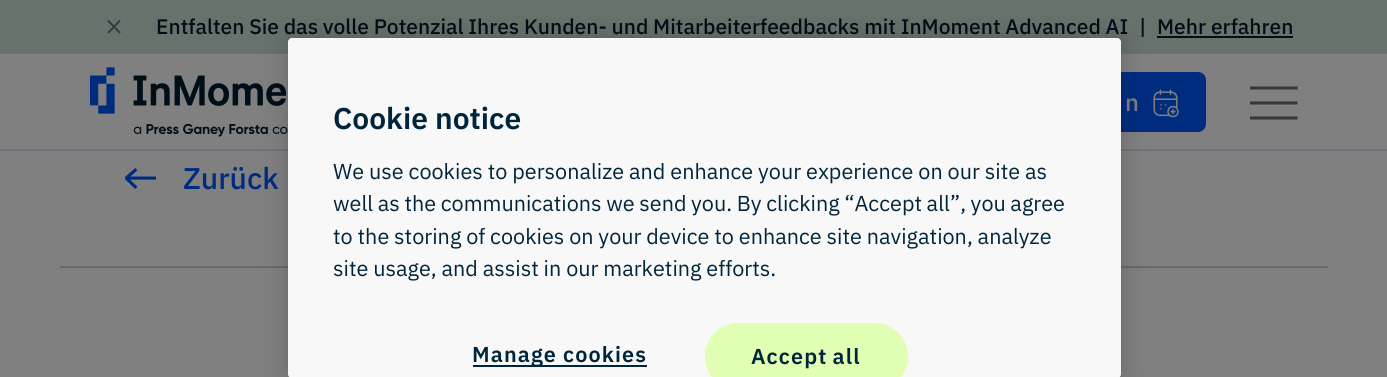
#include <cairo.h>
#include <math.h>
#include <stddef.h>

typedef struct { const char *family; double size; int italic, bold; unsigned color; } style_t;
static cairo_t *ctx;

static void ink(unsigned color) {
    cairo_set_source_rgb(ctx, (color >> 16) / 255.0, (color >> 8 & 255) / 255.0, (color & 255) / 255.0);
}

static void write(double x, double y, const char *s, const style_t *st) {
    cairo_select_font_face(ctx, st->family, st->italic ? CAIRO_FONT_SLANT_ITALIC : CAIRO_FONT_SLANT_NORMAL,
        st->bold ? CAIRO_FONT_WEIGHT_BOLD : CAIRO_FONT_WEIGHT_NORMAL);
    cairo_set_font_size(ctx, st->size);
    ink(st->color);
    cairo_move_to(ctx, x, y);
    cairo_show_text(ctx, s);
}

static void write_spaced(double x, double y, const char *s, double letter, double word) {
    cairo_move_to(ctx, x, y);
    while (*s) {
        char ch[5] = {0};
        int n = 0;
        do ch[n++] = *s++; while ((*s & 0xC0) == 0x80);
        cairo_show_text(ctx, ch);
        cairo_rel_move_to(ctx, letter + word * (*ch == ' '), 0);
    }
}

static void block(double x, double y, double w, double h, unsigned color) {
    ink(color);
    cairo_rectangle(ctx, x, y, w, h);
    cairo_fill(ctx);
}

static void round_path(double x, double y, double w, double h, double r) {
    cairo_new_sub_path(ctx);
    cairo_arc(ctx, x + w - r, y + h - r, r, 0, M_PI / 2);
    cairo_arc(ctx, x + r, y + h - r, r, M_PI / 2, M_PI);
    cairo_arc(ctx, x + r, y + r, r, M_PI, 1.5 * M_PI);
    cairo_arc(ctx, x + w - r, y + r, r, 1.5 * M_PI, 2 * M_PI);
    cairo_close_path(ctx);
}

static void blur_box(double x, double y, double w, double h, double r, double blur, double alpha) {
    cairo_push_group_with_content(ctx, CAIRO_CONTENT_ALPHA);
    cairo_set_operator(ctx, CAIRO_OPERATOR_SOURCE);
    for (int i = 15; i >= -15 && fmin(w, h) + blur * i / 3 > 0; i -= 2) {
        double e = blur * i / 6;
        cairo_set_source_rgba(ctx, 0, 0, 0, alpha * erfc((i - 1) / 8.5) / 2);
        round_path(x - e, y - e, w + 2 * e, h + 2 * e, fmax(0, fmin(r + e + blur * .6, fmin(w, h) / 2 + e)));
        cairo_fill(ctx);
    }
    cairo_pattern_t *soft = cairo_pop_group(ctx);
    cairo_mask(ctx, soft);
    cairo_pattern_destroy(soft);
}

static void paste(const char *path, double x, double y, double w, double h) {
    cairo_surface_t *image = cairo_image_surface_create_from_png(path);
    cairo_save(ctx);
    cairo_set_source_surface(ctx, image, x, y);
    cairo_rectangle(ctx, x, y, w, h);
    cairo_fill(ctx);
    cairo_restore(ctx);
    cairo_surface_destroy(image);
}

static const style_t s1 = {"IBM Plex Sans Medium", 21, 0, 0, 0x000f18};
static const style_t s2 = {"IBM Plex Sans Medium", 24, 0, 0, 0x808080};
static const style_t s3 = {"IBM Plex Sans Medium", 30, 0, 0, 0x002c80};
static const style_t s4 = {"IBM Plex Sans SemiBold", 30, 0, 0, 0x00253b};

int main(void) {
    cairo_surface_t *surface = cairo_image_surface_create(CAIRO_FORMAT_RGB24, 1387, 377);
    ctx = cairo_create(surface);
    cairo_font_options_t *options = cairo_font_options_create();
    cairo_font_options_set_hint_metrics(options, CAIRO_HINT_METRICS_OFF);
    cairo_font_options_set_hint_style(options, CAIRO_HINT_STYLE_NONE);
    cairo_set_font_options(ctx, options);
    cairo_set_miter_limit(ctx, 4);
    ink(0x808080);
    cairo_paint(ctx);
    block(0, 0, 1387, 54, 0x68726c);
    cairo_new_path(ctx);
    cairo_move_to(ctx, 108, 20.5);
    cairo_line_to(ctx, 120, 33);
    cairo_move_to(ctx, 108, 33);
    cairo_line_to(ctx, 120, 20.5);
    ink(0x32383d);
    cairo_set_line_width(ctx, 1.9);
    cairo_stroke(ctx);
    cairo_select_font_face(ctx, "IBM Plex Sans Medium", CAIRO_FONT_SLANT_NORMAL, CAIRO_FONT_WEIGHT_NORMAL);
    cairo_set_font_size(ctx, 21);
    ink(0x000f18);
    write_spaced(156, 34, "Entfalten Sie das volle Potenzial Ihres Kunden- und Mitarbeiterfeedbacks mit InMoment Advanced AI", 0, -0.25);
    write(1139, 34, "|", &s1);
    write(1157, 34, "Mehr erfahren", &s1);
    block(1157, 36, 136, 2, 0x000f18);
    paste("pic1.png", 90, 67, 198, 70);
    round_path(912, 73, 293, 58, 7);
    ink(0x002c80);
    cairo_set_line_width(ctx, 2);
    cairo_stroke(ctx);
    round_path(912, 74, 293, 57, 6);
    cairo_fill(ctx);
    write(1125, 111, "n", &s2);
    paste("pic2.png", 1153, 89, 26, 29);
    cairo_save(ctx);
    cairo_rectangle(ctx, 1250, 86, 48, 34);
    cairo_clip(ctx);
    cairo_new_path(ctx);
    cairo_move_to(ctx, 1249.5, 88);
    cairo_line_to(ctx, 1297.5, 88);
    cairo_move_to(ctx, 1249.5, 103);
    cairo_line_to(ctx, 1297.5, 103);
    cairo_move_to(ctx, 1249.5, 118);
    cairo_line_to(ctx, 1297.5, 118);
    ink(0x32383d);
    cairo_set_line_width(ctx, 3);
    cairo_stroke(ctx);
    cairo_restore(ctx);
    block(0, 149, 1387, 2, 0x6b727e);
    block(60, 266, 1268, 2, 0x686a6d);
    paste("pic3.png", 125, 168, 31, 21);
    write(183, 189, "Zurück", &s3);
    ink(0x000000);
    blur_box(288, 38, 833, 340, 4, 13.5, 0.2);
    ink(0xf8f8f8);
    round_path(288, 38, 833, 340, 4);
    cairo_fill(ctx);
    write(333, 129, "Cookie notice", &s4);
    cairo_select_font_face(ctx, "IBM Plex Sans", CAIRO_FONT_SLANT_NORMAL, CAIRO_FONT_WEIGHT_NORMAL);
    cairo_set_font_size(ctx, 21.6);
    write_spaced(333, 179, "We use cookies to personalize and enhance your experience on our site as", 0, -0.2);
    write_spaced(333, 211, "well as the communications we send you. By clicking “Accept all”, you agree", 0, -0.5);
    write_spaced(333, 244, "to the storing of cookies on your device to enhance site navigation, analyze", 0, -0.25);
    write_spaced(333, 276, "site usage, and assist in our marketing efforts.", 0, -0.25);
    block(473, 365, 174, 2, 0x00253b);
    cairo_select_font_face(ctx, "IBM Plex Sans SemiBold", CAIRO_FONT_SLANT_NORMAL, CAIRO_FONT_WEIGHT_NORMAL);
    write_spaced(472, 362, "Manage cookies", 1.1, 0);
    ink(0xe1ffb3);
    round_path(705, 323, 203, 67, 33.5);
    cairo_fill(ctx);
    cairo_new_path(ctx);
    cairo_move_to(ctx, 738, 323);
    cairo_curve_to(ctx, 710, 323, 695, 357, 713, 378);
    cairo_line_to(ctx, 715, 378);
    cairo_curve_to(ctx, 710, 372, 707, 365, 707, 356);
    cairo_curve_to(ctx, 707, 339, 721, 325, 738, 325);
    cairo_line_to(ctx, 874, 325);
    cairo_curve_to(ctx, 892, 325, 906, 339, 906, 356);
    cairo_curve_to(ctx, 906, 365, 903, 372, 898, 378);
    cairo_line_to(ctx, 900, 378);
    cairo_curve_to(ctx, 918, 357, 903, 323, 874, 323);
    cairo_close_path(ctx);
    cairo_fill(ctx);
    ink(0x00253b);
    write_spaced(751, 364, "Accept all", 1.1, -1);
    cairo_surface_write_to_png(surface, "screenshot.png");
    cairo_font_options_destroy(options);
    cairo_destroy(ctx);
    cairo_surface_destroy(surface);
    return 0;
}
